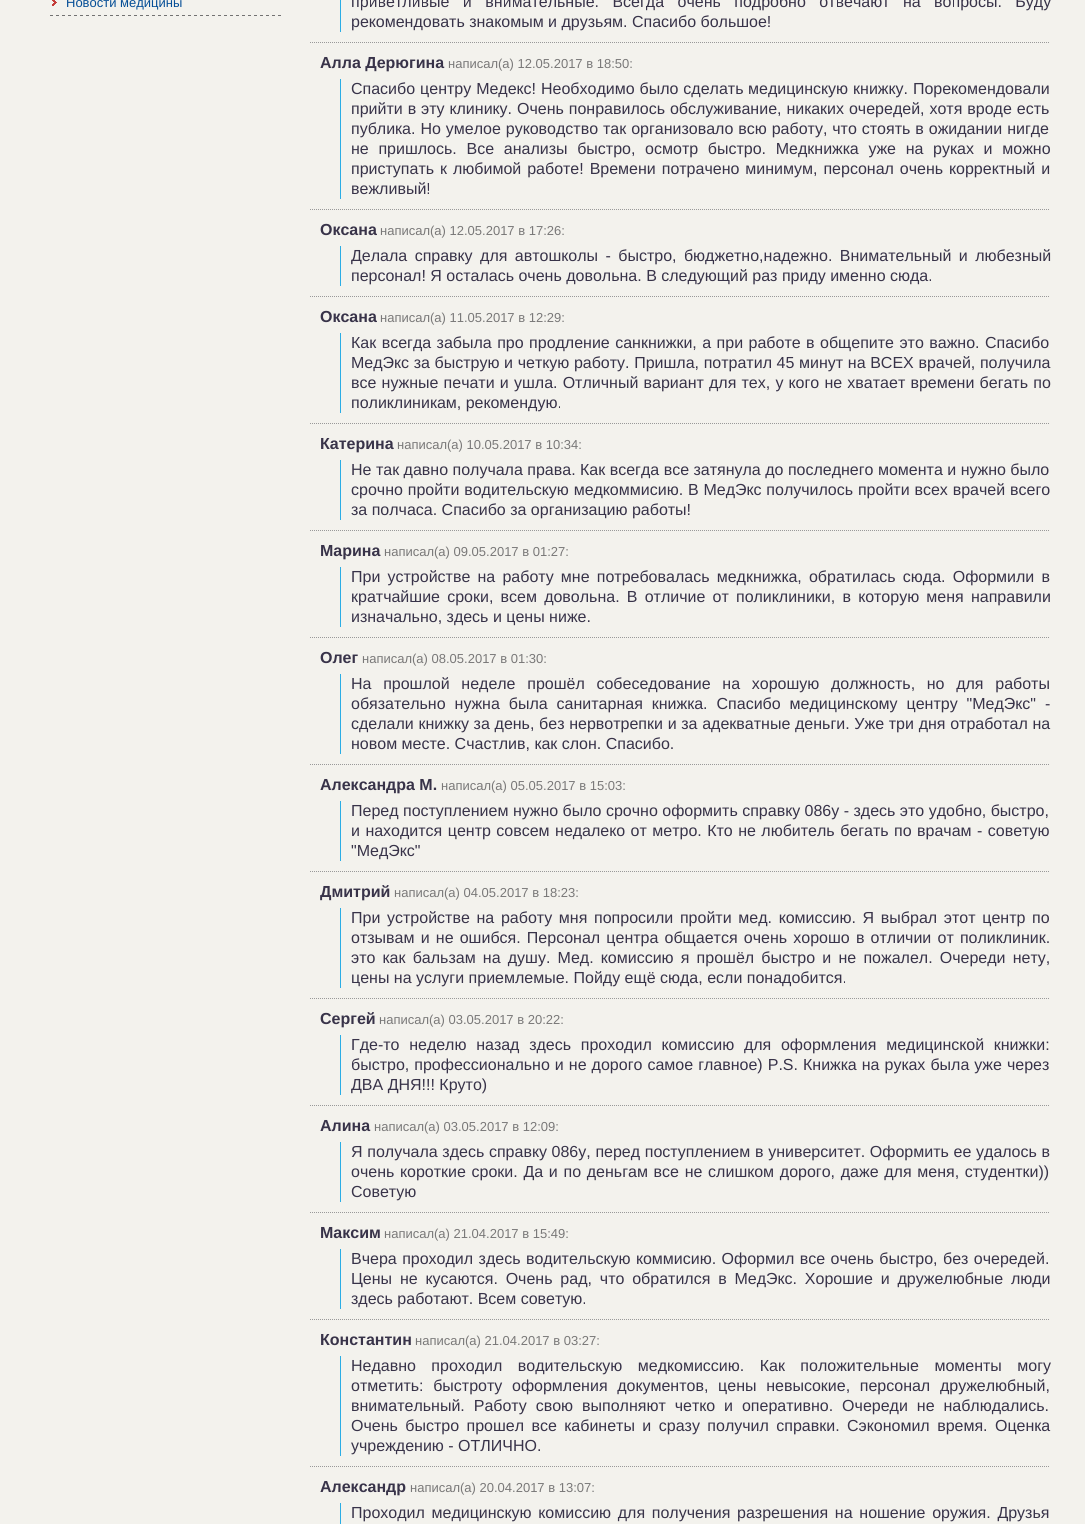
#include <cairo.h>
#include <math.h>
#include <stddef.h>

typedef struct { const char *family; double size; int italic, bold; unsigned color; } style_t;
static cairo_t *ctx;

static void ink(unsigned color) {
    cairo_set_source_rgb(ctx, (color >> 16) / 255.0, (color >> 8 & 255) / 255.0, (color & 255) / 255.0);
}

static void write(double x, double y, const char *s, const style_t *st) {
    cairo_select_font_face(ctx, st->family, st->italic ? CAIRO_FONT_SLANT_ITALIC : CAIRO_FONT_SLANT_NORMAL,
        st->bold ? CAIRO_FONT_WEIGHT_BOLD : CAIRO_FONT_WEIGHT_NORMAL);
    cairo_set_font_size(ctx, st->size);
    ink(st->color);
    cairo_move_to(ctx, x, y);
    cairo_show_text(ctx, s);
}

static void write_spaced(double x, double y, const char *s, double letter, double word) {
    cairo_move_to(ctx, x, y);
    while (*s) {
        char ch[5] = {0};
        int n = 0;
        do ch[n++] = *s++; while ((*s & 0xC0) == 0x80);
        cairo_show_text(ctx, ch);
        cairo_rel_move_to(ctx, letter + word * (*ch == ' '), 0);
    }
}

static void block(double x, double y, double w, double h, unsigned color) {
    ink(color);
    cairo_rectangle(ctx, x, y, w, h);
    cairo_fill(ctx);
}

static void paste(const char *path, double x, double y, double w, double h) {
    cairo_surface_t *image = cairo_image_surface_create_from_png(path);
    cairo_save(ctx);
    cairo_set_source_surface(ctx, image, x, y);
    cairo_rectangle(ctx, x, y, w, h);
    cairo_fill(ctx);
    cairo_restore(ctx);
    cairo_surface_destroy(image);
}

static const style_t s1 = {"Liberation Sans", 13, 0, 0, 0x054e96};
static const style_t s2 = {"Liberation Sans", 16, 0, 0, 0x383349};
static const style_t s3 = {"Liberation Sans", 16, 0, 1, 0x383349};
static const style_t s4 = {"Liberation Sans", 13, 0, 0, 0x797878};

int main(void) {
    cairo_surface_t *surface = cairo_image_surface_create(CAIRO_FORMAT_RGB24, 1085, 1524);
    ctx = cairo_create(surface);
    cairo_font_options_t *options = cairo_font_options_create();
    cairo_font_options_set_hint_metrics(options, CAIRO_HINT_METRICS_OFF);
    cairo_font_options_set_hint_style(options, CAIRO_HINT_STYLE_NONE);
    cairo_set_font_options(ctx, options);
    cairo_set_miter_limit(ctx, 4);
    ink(0xf3f2ed);
    cairo_paint(ctx);
    paste("pic1.png", 50, 15, 231, 1);
    paste("pic2.png", 52, 0, 5, 6);
    write(66, 7, "Новости медицины", &s1);
    block(340, 0, 1, 32, 0x2bade5);
    cairo_set_font_size(ctx, 16);
    ink(0x383349);
    write_spaced(351, 7, "приветливые и внимательные. Всегда очень подробно отвечают на вопросы. Буду", 0, 9);
    write(351, 27, "рекомендовать знакомым и друзьям. Спасибо большое!", &s2);
    cairo_new_path(ctx);
    cairo_move_to(ctx, 310, 42.5);
    cairo_line_to(ctx, 1050, 42.5);
    ink(0x999999);
    cairo_set_line_width(ctx, 1);
    cairo_set_dash(ctx, (double[]){1, 1}, 2, 0);
    cairo_stroke(ctx);
    write(320, 68, "Алла Дерюгина", &s3);
    write(448, 68, "написал(а) 12.05.2017 в 18:50:", &s4);
    block(340, 79, 1, 120, 0x2bade5);
    cairo_set_font_size(ctx, 16);
    ink(0x383349);
    write_spaced(351, 94, "Спасибо центру Медекс! Необходимо было сделать", 0, 0.5);
    write_spaced(748, 94, "медицинскую книжку. Порекомендовали", 0, 0.5);
    write_spaced(351, 114, "прийти в эту клинику. Очень понравилось обслуживание, никаких очередей, хотя вроде есть", 0, 0.5);
    write_spaced(351, 134, "публика. Но умелое руководство так организовало всю работу, что стоять в ожидании нигде", 0, 0.5);
    write_spaced(351, 154, "не пришлось. Все анализы быстро, осмотр быстро. Медкнижка уже на руках и можно", 0, 5.25);
    write_spaced(351, 174, "приступать к любимой работе! Времени потрачено минимум, персонал очень корректный и", 0, 1.5);
    write(351, 194, "вежливый!", &s2);
    cairo_new_path(ctx);
    cairo_move_to(ctx, 310, 209.5);
    cairo_line_to(ctx, 1050, 209.5);
    ink(0x999999);
    cairo_stroke(ctx);
    write(320, 235, "Оксана", &s3);
    write(380, 235, "написал(а) 12.05.2017 в 17:26:", &s4);
    block(340, 246, 1, 40, 0x2bade5);
    cairo_set_font_size(ctx, 16);
    ink(0x383349);
    write_spaced(351, 261, "Делала справку для автошколы - быстро, бюджетно,надежно. Внимательный и любезный", 0, 3);
    write(351, 281, "персонал! Я осталась очень довольна. В следующий раз приду именно сюда.", &s2);
    cairo_new_path(ctx);
    cairo_move_to(ctx, 310, 296.5);
    cairo_line_to(ctx, 1050, 296.5);
    ink(0x999999);
    cairo_stroke(ctx);
    write(320, 322, "Оксана", &s3);
    write(380, 322, "написал(а) 11.05.2017 в 12:29:", &s4);
    block(340, 333, 1, 80, 0x2bade5);
    cairo_set_font_size(ctx, 16);
    ink(0x383349);
    write_spaced(351, 348, "Как всегда забыла про продление санкнижки, а при работе в общепите это важно. Спасибо", 0, 1);
    write_spaced(351, 368, "МедЭкс за быструю и четкую работу. Пришла, потратил 45 минут на ВСЕХ врачей, получила", 0, 0.2);
    write_spaced(351, 388, "все нужные печати и ушла. Отличный вариант для тех, у кого не хватает времени бегать по", 0, 0.75);
    write(351, 408, "поликлиникам, рекомендую.", &s2);
    cairo_new_path(ctx);
    cairo_move_to(ctx, 310, 423.5);
    cairo_line_to(ctx, 1050, 423.5);
    ink(0x999999);
    cairo_stroke(ctx);
    write(320, 449, "Катерина", &s3);
    write(397, 449, "написал(а) 10.05.2017 в 10:34:", &s4);
    block(340, 460, 1, 60, 0x2bade5);
    write(351, 475, "Не так давно получала права. Как всегда все затянула до последнего момента и нужно было", &s2);
    write_spaced(351, 495, "срочно пройти водительскую медкоммисию. В МедЭкс получилось пройти всех врачей всего", 0, 0.4);
    write(351, 515, "за полчаса. Спасибо за организацию работы!", &s2);
    cairo_new_path(ctx);
    cairo_move_to(ctx, 310, 530.5);
    cairo_line_to(ctx, 1050, 530.5);
    ink(0x999999);
    cairo_stroke(ctx);
    write(320, 556, "Марина", &s3);
    write(384, 556, "написал(а) 09.05.2017 в 01:27:", &s4);
    block(340, 567, 1, 60, 0x2bade5);
    cairo_set_font_size(ctx, 16);
    ink(0x383349);
    write_spaced(351, 582, "При устройстве на работу мне потребовалась медкнижка, обратилась сюда. Оформили в", 0, 2.75);
    write_spaced(351, 602, "кратчайшие сроки, всем довольна. В отличие от поликлиники, в которую меня направили", 0, 2.75);
    write(351, 622, "изначально, здесь и цены ниже.", &s2);
    cairo_new_path(ctx);
    cairo_move_to(ctx, 310, 637.5);
    cairo_line_to(ctx, 1050, 637.5);
    ink(0x999999);
    cairo_stroke(ctx);
    write(320, 663, "Олег", &s3);
    write(362, 663, "написал(а) 08.05.2017 в 01:30:", &s4);
    block(340, 674, 1, 80, 0x2bade5);
    cairo_set_font_size(ctx, 16);
    ink(0x383349);
    write_spaced(351, 689, "На прошлой неделе прошёл собеседование на хорошую должность, но для работы", 0, 7.25);
    write_spaced(351, 709, "обязательно нужна была санитарная книжка. Спасибо медицинскому центру \"МедЭкс\" -", 0, 4.5);
    write_spaced(351, 729, "сделали книжку за день, без нервотрепки и за адекватные деньги. Уже три дня отработал на", 0, 0.25);
    write(351, 749, "новом месте. Счастлив, как слон. Спасибо.", &s2);
    cairo_new_path(ctx);
    cairo_move_to(ctx, 310, 764.5);
    cairo_line_to(ctx, 1050, 764.5);
    ink(0x999999);
    cairo_stroke(ctx);
    write(320, 790, "Александра М.", &s3);
    write(441, 790, "написал(а) 05.05.2017 в 15:03:", &s4);
    block(340, 801, 1, 60, 0x2bade5);
    write(351, 816, "Перед поступлением нужно было срочно оформить справку 086у - здесь это удобно, быстро,", &s2);
    write_spaced(351, 836, "и находится центр совсем недалеко от метро. Кто не любитель бегать по врачам - советую", 0, 1);
    write(351, 856, "\"МедЭкс\"", &s2);
    cairo_new_path(ctx);
    cairo_move_to(ctx, 310, 871.5);
    cairo_line_to(ctx, 1050, 871.5);
    ink(0x999999);
    cairo_stroke(ctx);
    write(320, 897, "Дмитрий", &s3);
    write(394, 897, "написал(а) 04.05.2017 в 18:23:", &s4);
    block(340, 908, 1, 80, 0x2bade5);
    cairo_set_font_size(ctx, 16);
    ink(0x383349);
    write_spaced(351, 923, "При устройстве на работу мня попросили пройти мед. комиссию. Я выбрал этот центр по", 0, 2.25);
    write_spaced(351, 943, "отзывам и не ошибся. Персонал центра общается очень хорошо в отличии от поликлиник.", 0, 1.75);
    write_spaced(351, 963, "это как бальзам на душу. Мед. комиссию я прошёл быстро и не пожалел. Очереди нету,", 0, 2.75);
    write(351, 983, "цены на услуги приемлемые. Пойду ещё сюда, если понадобится.", &s2);
    cairo_new_path(ctx);
    cairo_move_to(ctx, 310, 998.5);
    cairo_line_to(ctx, 1050, 998.5);
    ink(0x999999);
    cairo_stroke(ctx);
    write(320, 1024, "Сергей", &s3);
    write(379, 1024, "написал(а) 03.05.2017 в 20:22:", &s4);
    block(340, 1035, 1, 60, 0x2bade5);
    cairo_set_font_size(ctx, 16);
    ink(0x383349);
    write_spaced(351, 1050, "Где-то неделю назад здесь проходил комиссию для оформления медицинской книжки:", 0, 5.25);
    write_spaced(351, 1070, "быстро, профессионально и не дорого самое главное) P.S. Книжка на руках была уже через", 0, 0.6);
    write(351, 1090, "ДВА ДНЯ!!! Круто)", &s2);
    cairo_new_path(ctx);
    cairo_move_to(ctx, 310, 1105.5);
    cairo_line_to(ctx, 1050, 1105.5);
    ink(0x999999);
    cairo_stroke(ctx);
    write(320, 1131, "Алина", &s3);
    write(374, 1131, "написал(а) 03.05.2017 в 12:09:", &s4);
    block(340, 1142, 1, 60, 0x2bade5);
    cairo_set_font_size(ctx, 16);
    ink(0x383349);
    write_spaced(351, 1157, "Я получала здесь справку 086у, перед поступлением в университет. Оформить ее удалось в", 0, 0.25);
    write_spaced(351, 1177, "очень короткие сроки. Да и по деньгам все не слишком дорого, даже для меня, студентки))", 0, 1.25);
    write(351, 1197, "Советую", &s2);
    cairo_new_path(ctx);
    cairo_move_to(ctx, 310, 1212.5);
    cairo_line_to(ctx, 1050, 1212.5);
    ink(0x999999);
    cairo_stroke(ctx);
    write(320, 1238, "Максим", &s3);
    write(384, 1238, "написал(а) 21.04.2017 в 15:49:", &s4);
    block(340, 1249, 1, 60, 0x2bade5);
    cairo_set_font_size(ctx, 16);
    ink(0x383349);
    write_spaced(351, 1264, "Вчера проходил здесь водительскую коммисию. Оформил все очень быстро, без очередей.", 0, 1);
    write_spaced(351, 1284, "Цены не кусаются. Очень рад, что обратился в МедЭкс. Хорошие и дружелюбные люди", 0, 3.4);
    write(351, 1304, "здесь работают. Всем советую.", &s2);
    cairo_new_path(ctx);
    cairo_move_to(ctx, 310, 1319.5);
    cairo_line_to(ctx, 1050, 1319.5);
    ink(0x999999);
    cairo_stroke(ctx);
    write(320, 1345, "Константин", &s3);
    write(415, 1345, "написал(а) 21.04.2017 в 03:27:", &s4);
    block(340, 1356, 1, 100, 0x2bade5);
    cairo_set_font_size(ctx, 16);
    ink(0x383349);
    write_spaced(351, 1371, "Недавно проходил водительскую медкомиссию. Как положительные моменты могу", 0, 11);
    write_spaced(351, 1391, "отметить: быстроту оформления документов, цены невысокие, персонал дружелюбный,", 0, 5.25);
    write_spaced(351, 1411, "внимательный. Работу свою выполняют четко и оперативно. Очереди не наблюдались.", 0, 4.5);
    write_spaced(351, 1431, "Очень быстро прошел все кабинеты и сразу получил справки. Сэкономил время. Оценка", 0, 3);
    write(351, 1451, "учреждению - ОТЛИЧНО.", &s2);
    cairo_new_path(ctx);
    cairo_move_to(ctx, 310, 1466.5);
    cairo_line_to(ctx, 1050, 1466.5);
    ink(0x999999);
    cairo_stroke(ctx);
    write(320, 1492, "Александр", &s3);
    write(410, 1492, "написал(а) 20.04.2017 в 13:07:", &s4);
    block(340, 1503, 1, 21, 0x2bade5);
    cairo_set_font_size(ctx, 16);
    ink(0x383349);
    write_spaced(351, 1518, "Проходил медицинскую комиссию для получения разрешения на ношение оружия. Друзья", 0, 2.25);
    cairo_surface_write_to_png(surface, "screenshot.png");
    cairo_font_options_destroy(options);
    cairo_destroy(ctx);
    cairo_surface_destroy(surface);
    return 0;
}
